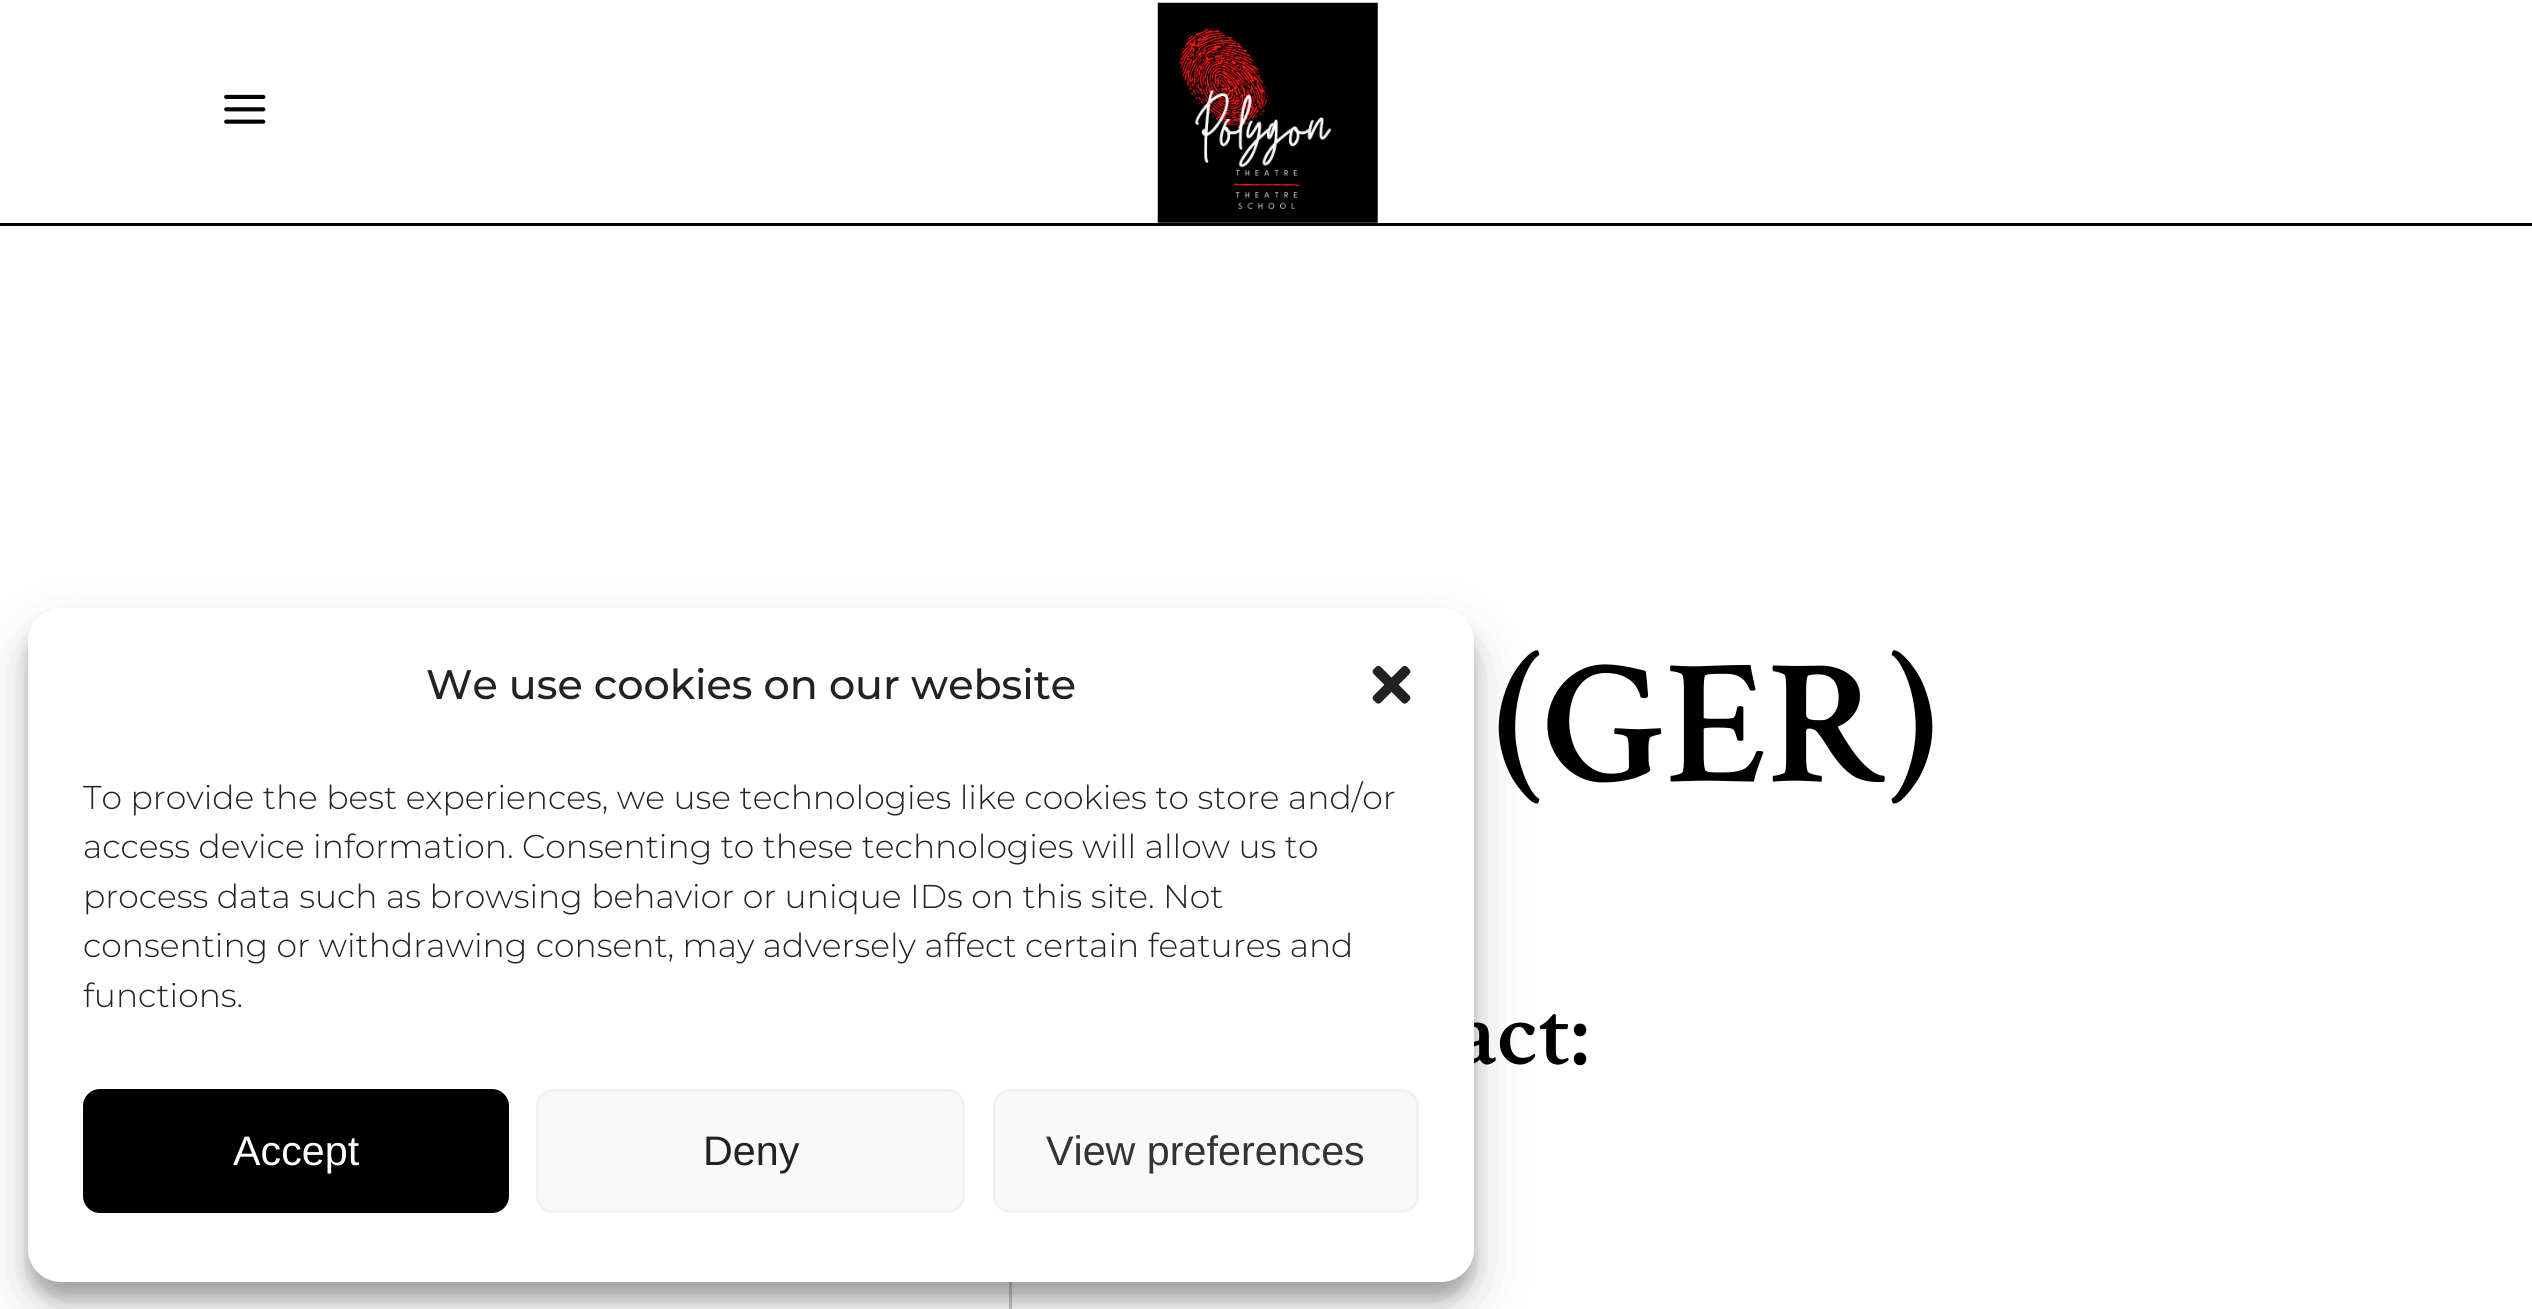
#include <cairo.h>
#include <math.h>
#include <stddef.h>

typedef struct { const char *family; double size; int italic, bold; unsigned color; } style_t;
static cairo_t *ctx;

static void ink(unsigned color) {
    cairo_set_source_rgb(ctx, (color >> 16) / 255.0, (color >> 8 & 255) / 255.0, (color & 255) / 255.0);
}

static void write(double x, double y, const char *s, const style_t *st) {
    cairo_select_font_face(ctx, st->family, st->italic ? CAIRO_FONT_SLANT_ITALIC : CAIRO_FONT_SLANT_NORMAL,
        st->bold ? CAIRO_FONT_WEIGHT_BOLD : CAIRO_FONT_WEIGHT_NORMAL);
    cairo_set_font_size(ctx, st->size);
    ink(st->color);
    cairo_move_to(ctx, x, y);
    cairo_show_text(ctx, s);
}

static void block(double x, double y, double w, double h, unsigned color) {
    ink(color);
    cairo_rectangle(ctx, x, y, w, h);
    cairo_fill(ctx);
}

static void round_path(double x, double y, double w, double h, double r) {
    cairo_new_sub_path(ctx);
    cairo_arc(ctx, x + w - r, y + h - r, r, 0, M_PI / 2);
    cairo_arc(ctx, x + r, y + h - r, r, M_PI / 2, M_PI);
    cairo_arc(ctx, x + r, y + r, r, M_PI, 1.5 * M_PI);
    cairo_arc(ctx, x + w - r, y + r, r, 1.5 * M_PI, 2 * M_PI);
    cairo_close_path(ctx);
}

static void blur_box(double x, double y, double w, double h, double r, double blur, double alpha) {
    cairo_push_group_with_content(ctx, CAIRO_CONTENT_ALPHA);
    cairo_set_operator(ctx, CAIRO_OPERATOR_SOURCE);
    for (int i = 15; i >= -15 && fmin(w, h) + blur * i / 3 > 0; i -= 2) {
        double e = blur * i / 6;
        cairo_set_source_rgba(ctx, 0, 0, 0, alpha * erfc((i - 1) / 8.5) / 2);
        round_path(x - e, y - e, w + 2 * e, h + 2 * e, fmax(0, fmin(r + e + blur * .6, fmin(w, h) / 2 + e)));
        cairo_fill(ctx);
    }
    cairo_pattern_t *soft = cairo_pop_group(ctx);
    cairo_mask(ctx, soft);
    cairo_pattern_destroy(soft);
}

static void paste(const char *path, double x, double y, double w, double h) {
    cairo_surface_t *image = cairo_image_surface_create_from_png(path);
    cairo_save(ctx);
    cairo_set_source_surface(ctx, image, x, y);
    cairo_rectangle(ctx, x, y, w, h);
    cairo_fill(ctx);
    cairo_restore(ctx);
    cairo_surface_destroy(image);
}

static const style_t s1 = {"Crimson Text SemiBold", 96, 0, 0, 0x000000};
static const style_t s2 = {"Montserrat Medium", 41.25, 0, 0, 0x222222};
static const style_t s3 = {"Montserrat Light", 33, 0, 0, 0x222222};
static const style_t s4 = {"Liberation Sans", 41.25, 0, 0, 0xffffff};
static const style_t s5 = {"Liberation Sans", 41.25, 0, 0, 0x222222};
static const style_t s6 = {"Liberation Sans", 41.25, 0, 0, 0x333333};
static const style_t s7 = {"Crimson Text SemiBold", 179, 0, 0, 0x000000};

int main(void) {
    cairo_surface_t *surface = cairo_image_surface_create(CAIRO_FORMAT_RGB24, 2532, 1309);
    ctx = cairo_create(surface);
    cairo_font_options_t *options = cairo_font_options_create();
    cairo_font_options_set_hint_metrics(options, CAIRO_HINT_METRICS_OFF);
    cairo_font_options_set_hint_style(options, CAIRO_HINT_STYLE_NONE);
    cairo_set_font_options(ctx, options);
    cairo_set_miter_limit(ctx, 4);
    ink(0xffffff);
    cairo_paint(ctx);
    block(1009, 1282, 3, 27, 0xcccccc);
    ink(0x000000);
    blur_box(28, 624, 1446, 674, 33, 8, 0.23);
    blur_box(28, 635, 1446, 674, 33, 27.5, 0.19);
    write(1455, 1064, "act:", &s1);
    ink(0xffffff);
    round_path(28, 608, 1446, 674, 33);
    cairo_fill(ctx);
    write(426, 699, "We use cookies on our website", &s2);
    paste("pic1.png", 1372, 665, 39, 39);
    write(83, 809, "To provide the best experiences, we use technologies like cookies to store and/or", &s3);
    write(83, 858, "access device information. Consenting to these technologies will allow us to", &s3);
    write(83, 908, "process data such as browsing behavior or unique IDs on this site. Not", &s3);
    write(83, 957, "consenting or withdrawing consent, may adversely affect certain features and", &s3);
    write(83, 1007, "functions.", &s3);
    ink(0x000000);
    round_path(84.5, 1090.5, 423, 121, 15.5);
    cairo_fill_preserve(ctx);
    cairo_set_line_width(ctx, 3);
    cairo_stroke(ctx);
    write(233, 1165, "Accept", &s4);
    ink(0xf9f9f9);
    round_path(537.5, 1090.5, 426, 121, 15.5);
    cairo_fill_preserve(ctx);
    ink(0xf2f2f2);
    cairo_stroke(ctx);
    write(703, 1165, "Deny", &s5);
    ink(0xf9f9f9);
    round_path(994.5, 1090.5, 423, 121, 15.5);
    cairo_fill_preserve(ctx);
    ink(0xf2f2f2);
    cairo_stroke(ctx);
    write(1046, 1165, "View preferences", &s6);
    block(0, 223, 2532, 3, 0x000000);
    paste("pic2.png", 224, 94, 42, 30);
    paste("pic3.png", 1157, 2, 221, 221);
    write(1494, 781, "(GER)", &s7);
    cairo_surface_write_to_png(surface, "screenshot.png");
    cairo_font_options_destroy(options);
    cairo_destroy(ctx);
    cairo_surface_destroy(surface);
    return 0;
}
